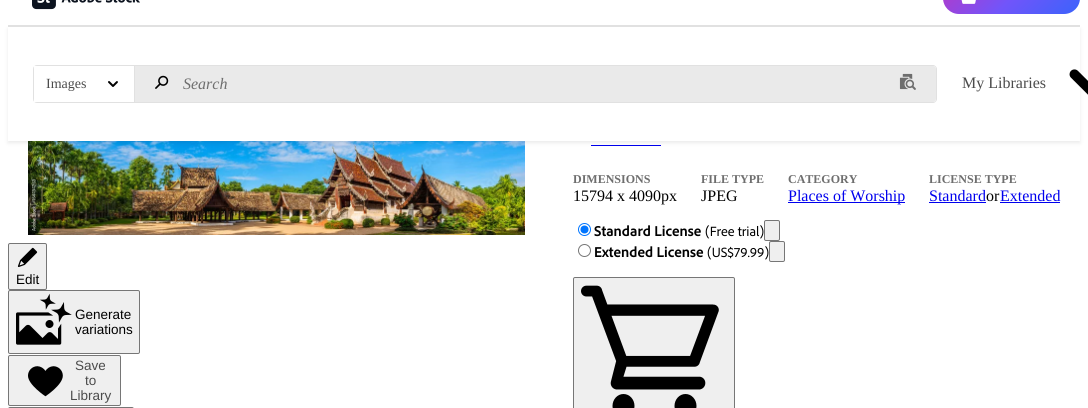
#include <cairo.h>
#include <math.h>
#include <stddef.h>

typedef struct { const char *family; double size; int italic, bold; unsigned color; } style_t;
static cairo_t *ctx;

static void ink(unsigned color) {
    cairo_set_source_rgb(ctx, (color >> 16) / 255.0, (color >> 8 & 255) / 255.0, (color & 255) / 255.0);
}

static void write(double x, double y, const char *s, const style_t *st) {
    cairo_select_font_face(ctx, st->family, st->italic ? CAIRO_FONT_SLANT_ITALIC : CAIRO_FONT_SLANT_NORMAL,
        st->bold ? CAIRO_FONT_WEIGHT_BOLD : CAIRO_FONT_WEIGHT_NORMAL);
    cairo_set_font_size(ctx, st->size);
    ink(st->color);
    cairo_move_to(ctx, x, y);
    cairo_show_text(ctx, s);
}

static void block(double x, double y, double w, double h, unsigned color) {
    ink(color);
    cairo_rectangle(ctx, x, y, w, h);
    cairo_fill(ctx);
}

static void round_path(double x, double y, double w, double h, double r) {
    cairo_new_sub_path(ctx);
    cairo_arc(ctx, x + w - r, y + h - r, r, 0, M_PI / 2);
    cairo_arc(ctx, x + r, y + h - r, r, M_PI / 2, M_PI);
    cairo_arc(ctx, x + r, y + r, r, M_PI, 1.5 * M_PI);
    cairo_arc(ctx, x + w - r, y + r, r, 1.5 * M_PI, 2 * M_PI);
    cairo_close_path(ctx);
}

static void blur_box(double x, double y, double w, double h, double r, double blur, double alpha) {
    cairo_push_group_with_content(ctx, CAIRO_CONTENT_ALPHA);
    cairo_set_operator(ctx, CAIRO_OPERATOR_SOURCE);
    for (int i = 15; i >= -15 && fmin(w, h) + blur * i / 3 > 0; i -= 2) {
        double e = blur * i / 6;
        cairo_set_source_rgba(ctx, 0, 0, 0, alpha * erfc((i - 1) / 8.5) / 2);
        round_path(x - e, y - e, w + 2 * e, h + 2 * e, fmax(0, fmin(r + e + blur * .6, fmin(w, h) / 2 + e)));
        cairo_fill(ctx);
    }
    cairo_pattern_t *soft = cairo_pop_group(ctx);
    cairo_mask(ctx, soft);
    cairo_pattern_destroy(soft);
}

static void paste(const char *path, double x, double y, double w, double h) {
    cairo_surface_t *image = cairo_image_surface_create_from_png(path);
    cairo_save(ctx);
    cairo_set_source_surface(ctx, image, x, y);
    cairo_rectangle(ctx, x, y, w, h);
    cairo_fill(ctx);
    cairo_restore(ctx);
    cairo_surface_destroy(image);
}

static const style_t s1 = {"Liberation Serif", 14, 0, 0, 0x4b4b4b};
static const style_t s2 = {"Liberation Serif", 16, 1, 0, 0x6e6e6e};
static const style_t s3 = {"Liberation Serif", 16, 0, 0, 0x4b4b4b};
static const style_t s4 = {"Liberation Serif", 12, 0, 1, 0x6e6e6e};
static const style_t s5 = {"Liberation Serif", 16, 0, 0, 0x000000};
static const style_t s6 = {"Liberation Serif", 16, 0, 0, 0x0000ee};
static const style_t s7 = {"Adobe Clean", 15, 0, 1, 0x000000};
static const style_t s8 = {"Adobe Clean", 14, 0, 0, 0x000000};
static const style_t s9 = {"Liberation Sans", 13.5, 0, 0, 0x000000};
static const style_t s10 = {"Liberation Sans", 13.5, 0, 0, 0x4b4b4b};

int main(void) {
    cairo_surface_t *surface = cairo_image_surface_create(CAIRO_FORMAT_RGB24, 1088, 408);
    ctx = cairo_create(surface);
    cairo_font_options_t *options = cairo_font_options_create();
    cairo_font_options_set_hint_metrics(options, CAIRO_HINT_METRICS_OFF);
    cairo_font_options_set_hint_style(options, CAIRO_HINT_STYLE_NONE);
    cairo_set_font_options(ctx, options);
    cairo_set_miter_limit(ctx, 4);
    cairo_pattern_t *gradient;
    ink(0xffffff);
    cairo_paint(ctx);
    block(591, 145, 70, 1, 0x0000ee);
    paste("pic8.png", 28, 141, 497, 94);
    ink(0x343434);
    blur_box(8, 29, 1072, 114, 0, 2, 0.1);
    block(8, 25, 1072, 2, 0xe1e1e1);
    paste("pic1.png", 32, 0, 108, 10);
    gradient = cairo_pattern_create_linear(969, -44, 1054, 40);
    cairo_pattern_add_color_stop_rgba(gradient, 0, 0.71, 0.224, 0.784, 1);
    cairo_pattern_add_color_stop_rgba(gradient, 0.5, 0.443, 0.333, 0.98, 1);
    cairo_pattern_add_color_stop_rgba(gradient, 1, 0.231, 0.388, 0.984, 1);
    cairo_set_source(ctx, gradient);
    cairo_pattern_destroy(gradient);
    round_path(943, -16, 137, 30, 16);
    cairo_fill(ctx);
    paste("pic2.png", 961, 0, 15, 4);
    block(8, 27, 1072, 114, 0xffffff);
    cairo_new_path(ctx);
    cairo_move_to(ctx, 37, 65.5);
    cairo_line_to(ctx, 134.5, 65.5);
    cairo_line_to(ctx, 134.5, 102.5);
    cairo_line_to(ctx, 37, 102.5);
    cairo_curve_to(ctx, 35, 102.5, 33.5, 101, 33.5, 99);
    cairo_line_to(ctx, 33.5, 69);
    cairo_curve_to(ctx, 33.5, 67, 35, 65.5, 37, 65.5);
    cairo_close_path(ctx);
    ink(0xe1e1e1);
    cairo_set_line_width(ctx, 1);
    cairo_stroke(ctx);
    block(34, 66, 3, 36, 0xffffff);
    write(46, 88, "Images", &s1);
    paste("pic3.png", 108, 81, 10, 6);
    ink(0xeaeaea);
    cairo_new_path(ctx);
    cairo_move_to(ctx, 135, 66);
    cairo_line_to(ctx, 933, 66);
    cairo_curve_to(ctx, 934.5, 66, 936, 67.5, 936, 69);
    cairo_line_to(ctx, 936, 99);
    cairo_curve_to(ctx, 936, 100.5, 934.5, 102, 933, 102);
    cairo_line_to(ctx, 135, 102);
    cairo_close_path(ctx);
    cairo_fill(ctx);
    ink(0xe1e1e1);
    cairo_set_fill_rule(ctx, CAIRO_FILL_RULE_EVEN_ODD);
    cairo_new_path(ctx);
    cairo_move_to(ctx, 135, 65);
    cairo_line_to(ctx, 933, 65);
    cairo_curve_to(ctx, 935, 65, 937, 67, 937, 69);
    cairo_line_to(ctx, 937, 99);
    cairo_curve_to(ctx, 937, 101, 935, 103, 933, 103);
    cairo_line_to(ctx, 135, 103);
    cairo_close_path(ctx);
    cairo_move_to(ctx, 135, 66);
    cairo_line_to(ctx, 933, 66);
    cairo_curve_to(ctx, 935, 66, 936, 67, 936, 69);
    cairo_line_to(ctx, 936, 99);
    cairo_curve_to(ctx, 936, 101, 935, 102, 933, 102);
    cairo_line_to(ctx, 135, 102);
    cairo_close_path(ctx);
    cairo_fill(ctx);
    paste("pic4.png", 155, 75, 14, 14);
    write(183, 89, "Search", &s2);
    paste("pic5.png", 899, 73, 17, 17);
    write(962, 88, "My Libraries", &s3);
    paste("pic6.png", 1069, 69, 19, 26);
    write(573, 183, "DIMENSIONS", &s4);
    write(573, 201, "15794 x 4090px", &s5);
    write(701, 183, "FILE TYPE", &s4);
    write(701, 201, "JPEG", &s5);
    write(788, 183, "CATEGORY", &s4);
    block(788, 202, 117, 1, 0x0000ee);
    write(788, 201, "Places of Worship", &s6);
    write(929, 183, "LICENSE TYPE", &s4);
    write(929, 201, "Standard", &s6);
    write(986, 201, "or", &s5);
    block(929, 202, 57, 1, 0x0000ee);
    block(1000, 202, 60, 1, 0x0000ee);
    write(1000, 201, "Extended", &s6);
    cairo_new_path(ctx);
    cairo_arc(ctx, 584.5, 229.5, 6, 0, 2 * M_PI);
    ink(0x0075ff);
    cairo_stroke(ctx);
    cairo_arc(ctx, 584.5, 229.5, 4, 0, 2 * M_PI);
    cairo_fill(ctx);
    write(594, 236, "Standard License", &s7);
    write(705, 236, "(Free trial)", &s8);
    ink(0xefefef);
    round_path(764.5, 220.5, 15, 20, 1.5);
    cairo_fill_preserve(ctx);
    ink(0x767676);
    cairo_stroke(ctx);
    cairo_arc(ctx, 584.5, 250.5, 6, 0, 2 * M_PI);
    cairo_stroke(ctx);
    write(594, 257, "Extended License", &s7);
    write(707, 257, "(US$79.99)", &s8);
    ink(0xefefef);
    round_path(769.5, 241.5, 15, 20, 1.5);
    cairo_fill_preserve(ctx);
    ink(0x767676);
    cairo_stroke(ctx);
    ink(0xefefef);
    round_path(573.5, 277.5, 161, 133, 1.5);
    cairo_fill_preserve(ctx);
    ink(0x767676);
    cairo_stroke(ctx);
    paste("pic7.png", 581, 285, 138, 123);
    ink(0xefefef);
    round_path(8.5, 243.5, 38, 46, 1.5);
    cairo_fill_preserve(ctx);
    ink(0x767676);
    cairo_stroke(ctx);
    paste("pic9.png", 17, 247, 21, 20);
    write(16, 284, "Edit", &s9);
    ink(0xefefef);
    round_path(8.5, 290.5, 131, 63, 1.5);
    cairo_fill_preserve(ctx);
    ink(0x767676);
    cairo_stroke(ctx);
    paste("pic10.png", 16, 293, 56, 52);
    write(75, 319, "Generate", &s9);
    write(75, 334, "variations", &s9);
    ink(0xefefef);
    round_path(8.5, 355.5, 112, 50, 1.5);
    cairo_fill_preserve(ctx);
    ink(0x767676);
    cairo_stroke(ctx);
    paste("pic11.png", 28, 366, 35, 31);
    write(75, 370, "Save", &s10);
    write(85, 385, "to", &s10);
    write(70, 400, "Library", &s10);
    round_path(8.5, 407.5, 125, 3, 1.5);
    ink(0x767676);
    cairo_stroke(ctx);
    cairo_surface_write_to_png(surface, "screenshot.png");
    cairo_font_options_destroy(options);
    cairo_destroy(ctx);
    cairo_surface_destroy(surface);
    return 0;
}
